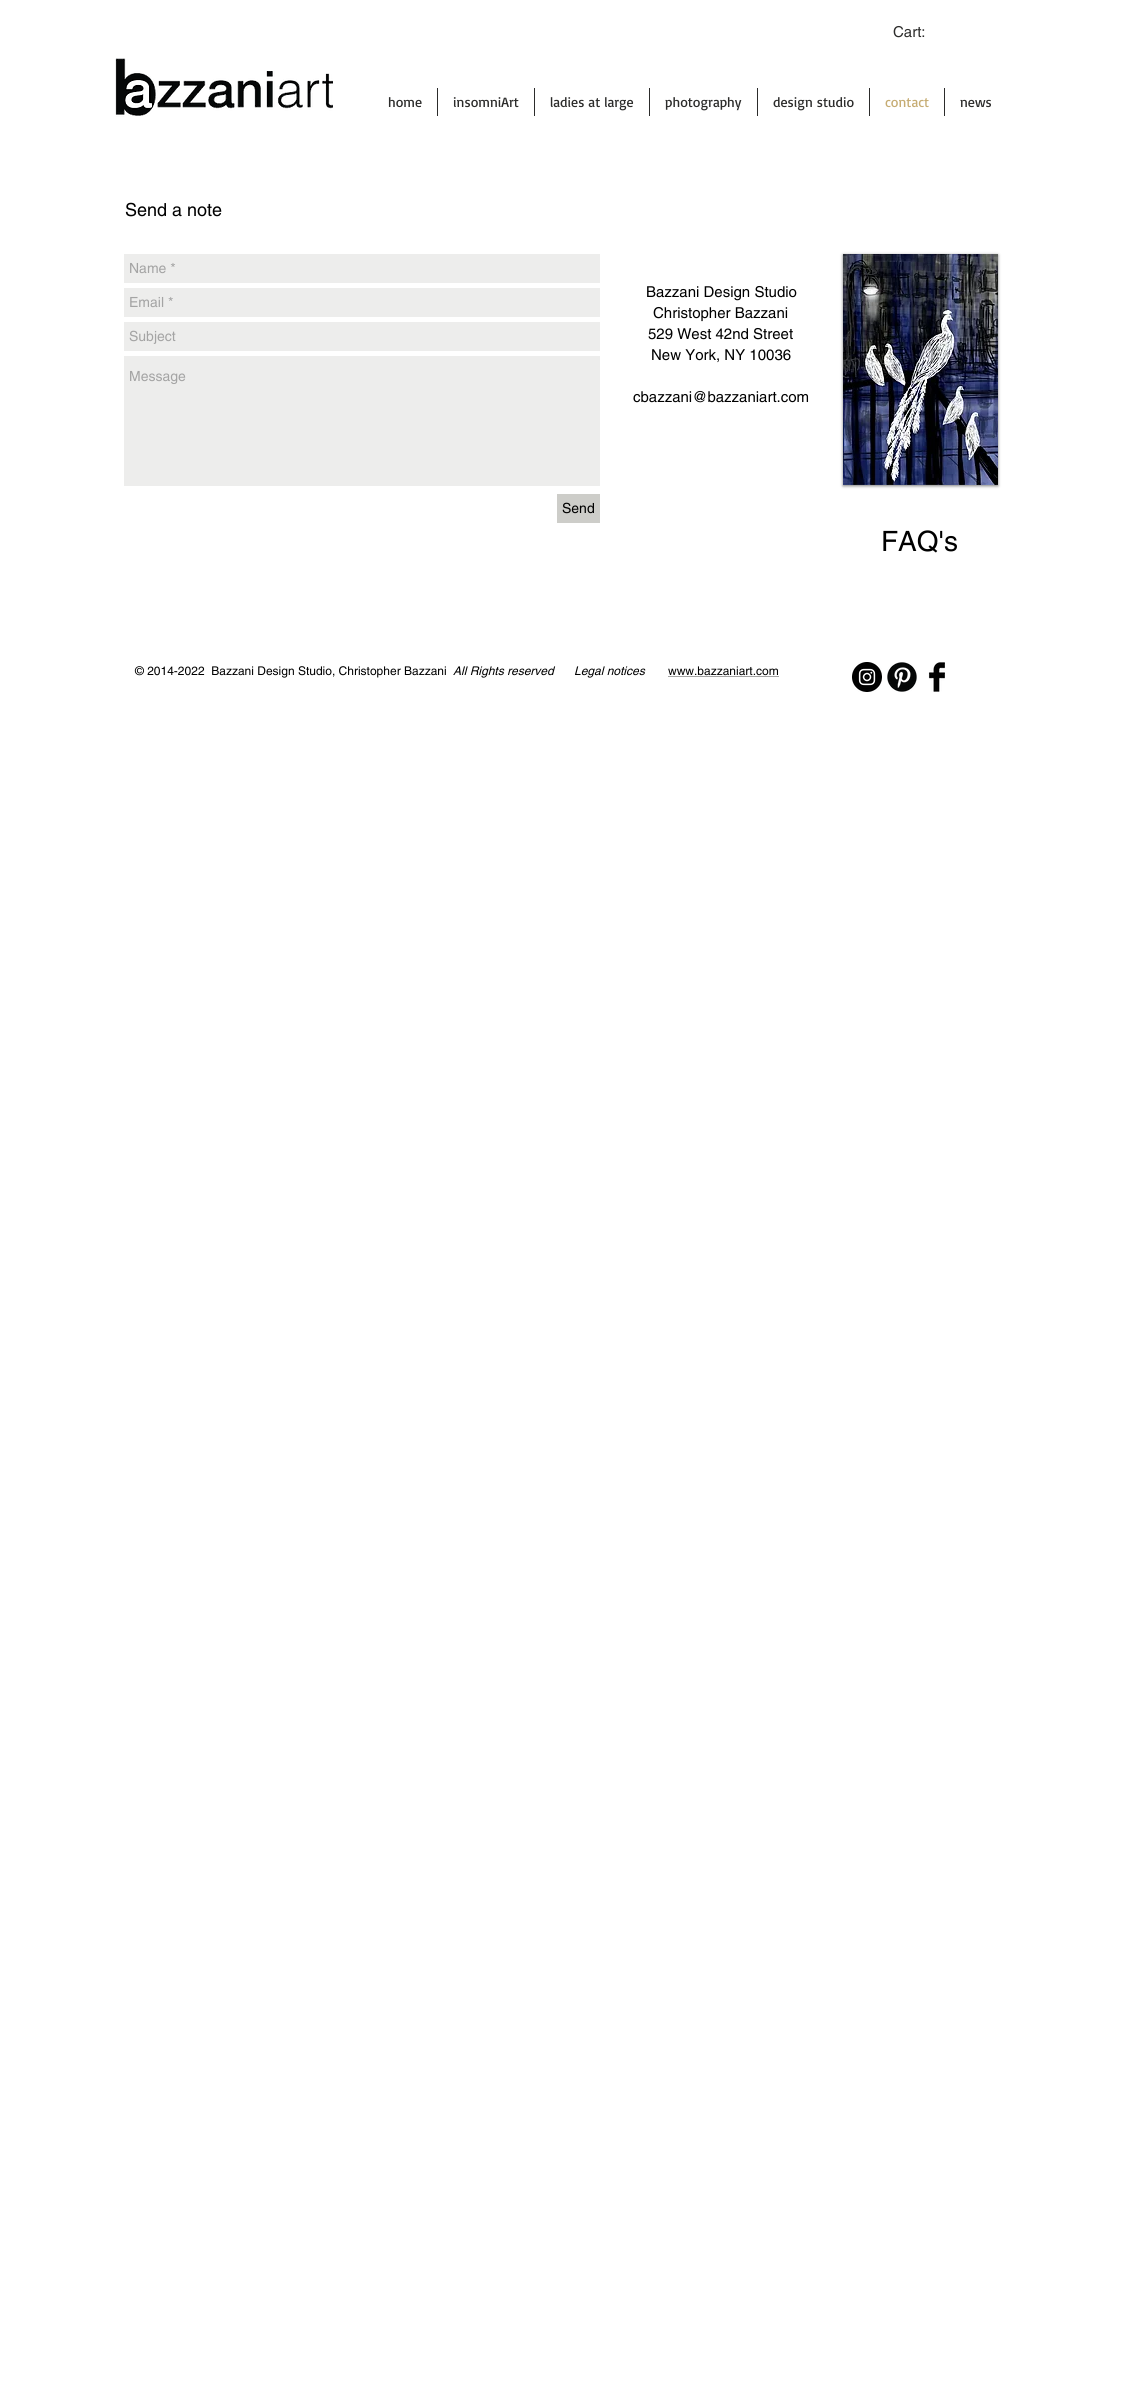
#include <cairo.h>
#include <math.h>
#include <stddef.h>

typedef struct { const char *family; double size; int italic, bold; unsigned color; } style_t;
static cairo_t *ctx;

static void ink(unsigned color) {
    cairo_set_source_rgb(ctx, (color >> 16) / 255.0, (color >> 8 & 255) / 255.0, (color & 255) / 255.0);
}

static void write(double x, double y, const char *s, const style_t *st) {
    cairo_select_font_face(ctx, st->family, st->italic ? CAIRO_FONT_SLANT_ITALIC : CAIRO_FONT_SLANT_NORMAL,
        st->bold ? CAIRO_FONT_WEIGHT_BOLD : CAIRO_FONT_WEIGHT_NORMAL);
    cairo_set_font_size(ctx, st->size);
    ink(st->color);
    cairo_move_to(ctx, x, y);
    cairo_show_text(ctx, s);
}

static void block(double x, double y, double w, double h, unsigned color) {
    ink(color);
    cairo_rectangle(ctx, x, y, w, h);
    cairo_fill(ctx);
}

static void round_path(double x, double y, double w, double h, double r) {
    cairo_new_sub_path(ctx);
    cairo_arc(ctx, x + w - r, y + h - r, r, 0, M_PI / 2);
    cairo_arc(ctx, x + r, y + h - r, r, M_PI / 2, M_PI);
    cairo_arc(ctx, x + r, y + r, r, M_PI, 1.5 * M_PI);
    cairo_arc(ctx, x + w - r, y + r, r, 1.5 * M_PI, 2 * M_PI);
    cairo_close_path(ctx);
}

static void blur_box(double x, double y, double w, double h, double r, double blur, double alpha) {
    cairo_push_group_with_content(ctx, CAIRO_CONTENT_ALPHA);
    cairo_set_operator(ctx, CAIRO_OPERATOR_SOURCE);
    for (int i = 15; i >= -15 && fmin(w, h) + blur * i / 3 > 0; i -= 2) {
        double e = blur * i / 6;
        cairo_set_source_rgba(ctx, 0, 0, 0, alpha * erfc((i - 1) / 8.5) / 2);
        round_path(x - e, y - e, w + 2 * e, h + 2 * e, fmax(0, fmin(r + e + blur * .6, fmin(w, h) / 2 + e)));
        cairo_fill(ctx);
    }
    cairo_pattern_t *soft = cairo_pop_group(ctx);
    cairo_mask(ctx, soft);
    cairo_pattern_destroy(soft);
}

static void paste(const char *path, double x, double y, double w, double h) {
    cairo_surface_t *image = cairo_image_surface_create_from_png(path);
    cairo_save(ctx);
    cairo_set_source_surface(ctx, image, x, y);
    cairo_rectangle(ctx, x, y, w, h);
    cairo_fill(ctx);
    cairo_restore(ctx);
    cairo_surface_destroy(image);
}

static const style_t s1 = {"helvetica", 15, 0, 0, 0x2c2c2b};
static const style_t s2 = {"Basic", 14, 0, 0, 0x2c2c2b};
static const style_t s3 = {"Basic", 14, 0, 0, 0xc6ac73};
static const style_t s4 = {"helvetica", 18, 0, 0, 0x000000};
static const style_t s5 = {"helvetica", 14, 0, 0, 0xa4a4a4};
static const style_t s6 = {"helvetica", 14, 0, 0, 0x000000};
static const style_t s7 = {"helvetica", 15, 0, 0, 0x000000};
static const style_t s8 = {"helvetica", 28, 0, 0, 0x000000};
static const style_t s9 = {"helvetica", 12, 0, 0, 0x000000};
static const style_t s10 = {"helvetica", 12, 1, 0, 0x000000};

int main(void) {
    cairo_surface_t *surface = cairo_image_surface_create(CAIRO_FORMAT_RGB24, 1122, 2408);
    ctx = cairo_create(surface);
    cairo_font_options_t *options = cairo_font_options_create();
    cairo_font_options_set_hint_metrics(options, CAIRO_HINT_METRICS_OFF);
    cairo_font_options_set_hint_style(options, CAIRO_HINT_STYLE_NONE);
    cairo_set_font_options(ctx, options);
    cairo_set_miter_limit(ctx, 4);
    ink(0xffffff);
    cairo_paint(ctx);
    write(893, 37, "Cart:", &s1);
    paste("pic1.png", 115, 58, 218, 59);
    write(388, 107, "home", &s2);
    block(437, 88, 1, 28, 0x2c2c2b);
    write(453, 107, "insomniArt", &s2);
    block(534, 88, 1, 28, 0x2c2c2b);
    write(550, 107, "ladies at large", &s2);
    block(649, 88, 1, 28, 0x2c2c2b);
    write(665, 107, "photography", &s2);
    block(757, 88, 1, 28, 0x2c2c2b);
    write(773, 107, "design studio", &s2);
    block(869, 88, 1, 28, 0x2c2c2b);
    write(885, 107, "contact", &s3);
    block(944, 88, 1, 28, 0x2c2c2b);
    write(960, 107, "news", &s2);
    write(125, 216, "Send a note", &s4);
    block(124, 254, 476, 29, 0xededec);
    write(129, 273, "Name *", &s5);
    block(124, 288, 476, 29, 0xededec);
    write(129, 307, "Email *", &s5);
    block(124, 322, 476, 29, 0xededec);
    write(129, 341, "Subject", &s5);
    block(124, 356, 476, 130, 0xededec);
    write(129, 381, "Message", &s5);
    block(557, 494, 43, 29, 0xcdcdc9);
    write(562, 513, "Send", &s6);
    write(646, 297, "Bazzani Design Studio", &s7);
    write(653, 318, "Christopher Bazzani", &s7);
    write(648, 339, "529 West 42nd Street", &s7);
    write(651, 360, "New York, NY 10036", &s7);
    write(633, 402, "cbazzani@bazzaniart.com", &s7);
    ink(0x000000);
    blur_box(843, 255, 155, 231, 0, 1.5, 0.5);
    paste("pic2.png", 843, 254, 155, 231);
    write(881, 551, "FAQ's", &s8);
    write(135, 675, "© 2014-2022  Bazzani Design Studio, Christopher Bazzani", &s9);
    write(453, 675, "All Rights reserved", &s10);
    write(574, 675, "Legal notices", &s10);
    write(668, 675, "www.bazzaniart.com", &s9);
    block(668, 676, 111, 1, 0xa4a4a4);
    paste("pic3.png", 852, 662, 30, 30);
    paste("pic4.png", 887, 662, 30, 30);
    paste("pic5.png", 928, 662, 17, 30);
    cairo_surface_write_to_png(surface, "screenshot.png");
    cairo_font_options_destroy(options);
    cairo_destroy(ctx);
    cairo_surface_destroy(surface);
    return 0;
}
